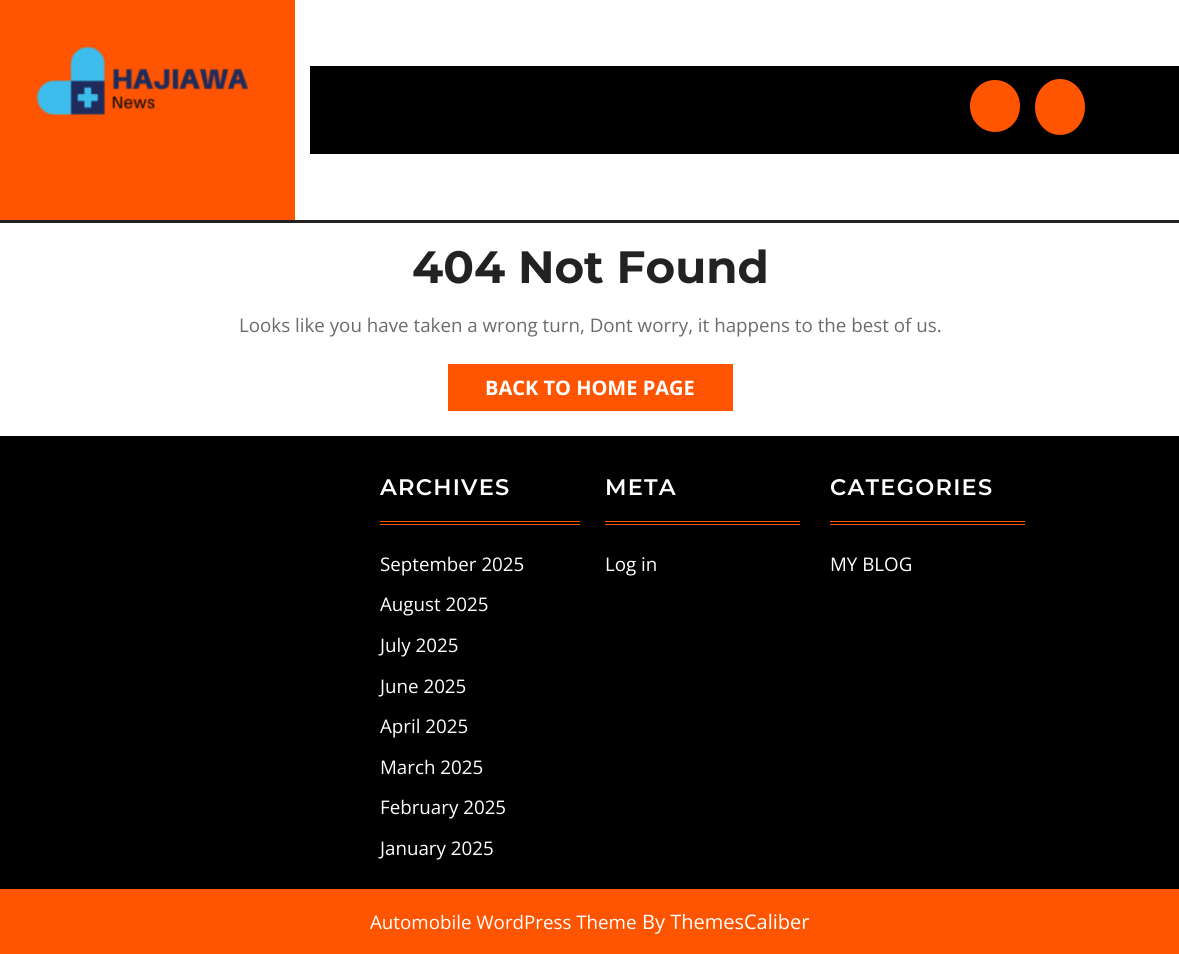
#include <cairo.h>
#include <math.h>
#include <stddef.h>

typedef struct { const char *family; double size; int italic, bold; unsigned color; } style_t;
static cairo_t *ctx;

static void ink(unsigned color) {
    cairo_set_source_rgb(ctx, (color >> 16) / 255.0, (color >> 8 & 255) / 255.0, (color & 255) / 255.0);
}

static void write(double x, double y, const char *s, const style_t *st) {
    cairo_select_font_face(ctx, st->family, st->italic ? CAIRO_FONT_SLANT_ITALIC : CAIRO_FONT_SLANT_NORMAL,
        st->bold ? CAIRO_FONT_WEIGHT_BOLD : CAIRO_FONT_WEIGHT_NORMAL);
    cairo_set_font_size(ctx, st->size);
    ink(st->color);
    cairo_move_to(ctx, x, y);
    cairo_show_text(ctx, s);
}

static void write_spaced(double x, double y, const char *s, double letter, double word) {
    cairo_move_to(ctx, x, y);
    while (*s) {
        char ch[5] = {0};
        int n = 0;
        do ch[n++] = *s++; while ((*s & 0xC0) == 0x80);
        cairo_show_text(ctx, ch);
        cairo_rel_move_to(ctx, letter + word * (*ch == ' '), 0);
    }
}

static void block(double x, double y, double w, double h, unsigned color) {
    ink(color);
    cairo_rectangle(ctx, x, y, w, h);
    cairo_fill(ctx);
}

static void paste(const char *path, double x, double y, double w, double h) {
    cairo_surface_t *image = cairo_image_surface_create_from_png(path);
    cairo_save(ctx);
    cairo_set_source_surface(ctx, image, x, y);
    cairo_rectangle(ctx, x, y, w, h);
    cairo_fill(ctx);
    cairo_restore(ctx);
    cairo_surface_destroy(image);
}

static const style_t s1 = {"Montserrat", 45.25, 0, 1, 0x222222};
static const style_t s2 = {"Open Sans", 18.75, 0, 0, 0x6b6b6b};
static const style_t s3 = {"Open Sans", 20, 0, 1, 0xffffff};
static const style_t s4 = {"Open Sans", 18.75, 0, 0, 0xffffff};
static const style_t s5 = {"Open Sans", 20, 0, 0, 0xffffff};

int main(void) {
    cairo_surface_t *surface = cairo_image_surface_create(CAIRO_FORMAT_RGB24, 1179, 954);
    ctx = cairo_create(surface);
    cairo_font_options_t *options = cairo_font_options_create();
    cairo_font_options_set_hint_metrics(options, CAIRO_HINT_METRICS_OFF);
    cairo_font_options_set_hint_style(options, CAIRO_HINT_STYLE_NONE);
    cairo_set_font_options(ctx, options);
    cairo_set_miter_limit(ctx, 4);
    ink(0xffffff);
    cairo_paint(ctx);
    block(0, 220, 1179, 3, 0x222222);
    block(0, 0, 295, 220, 0xff5400);
    paste("pic1.png", 36, 46, 213, 69);
    block(310, 66, 869, 88, 0x000000);
    ink(0xff5400);
    cairo_new_path(ctx);
    cairo_move_to(ctx, 995, 80);
    cairo_curve_to(ctx, 1009, 80, 1020, 91.5, 1020, 106);
    cairo_curve_to(ctx, 1020, 120.5, 1009, 132, 995, 132);
    cairo_curve_to(ctx, 981, 132, 970, 120.5, 970, 106);
    cairo_curve_to(ctx, 970, 91.5, 981, 80, 995, 80);
    cairo_close_path(ctx);
    cairo_fill(ctx);
    cairo_new_path(ctx);
    cairo_move_to(ctx, 1060, 79);
    cairo_curve_to(ctx, 1074, 79, 1085, 91.5, 1085, 107);
    cairo_curve_to(ctx, 1085, 122.5, 1074, 135, 1060, 135);
    cairo_curve_to(ctx, 1046, 135, 1035, 122.5, 1035, 107);
    cairo_curve_to(ctx, 1035, 91.5, 1046, 79, 1060, 79);
    cairo_close_path(ctx);
    cairo_fill(ctx);
    write(412, 283, "404 Not Found", &s1);
    write(239, 332, "Looks like you have taken a wrong turn, Dont worry, it happens to the best of us.", &s2);
    block(448, 364, 285, 47, 0xff5400);
    write(485, 395, "BACK TO HOME PAGE", &s3);
    block(0, 436, 1179, 453, 0x000000);
    block(380, 521, 200, 1, 0xff5400);
    block(380, 524, 200, 1, 0xff5400);
    cairo_select_font_face(ctx, "Montserrat SemiBold", CAIRO_FONT_SLANT_NORMAL, CAIRO_FONT_WEIGHT_NORMAL);
    cairo_set_font_size(ctx, 22.5);
    ink(0xffffff);
    write_spaced(380, 495, "ARCHIVES", 1.25, 0);
    write(380, 571, "September 2025", &s4);
    write(380, 611, "August 2025", &s4);
    write(380, 652, "July 2025", &s4);
    write(380, 693, "June 2025", &s4);
    write(380, 733, "April 2025", &s4);
    write(380, 774, "March 2025", &s4);
    write(380, 814, "February 2025", &s4);
    write(380, 855, "January 2025", &s4);
    block(605, 521, 195, 1, 0xff5400);
    block(605, 524, 195, 1, 0xff5400);
    cairo_select_font_face(ctx, "Montserrat SemiBold", CAIRO_FONT_SLANT_NORMAL, CAIRO_FONT_WEIGHT_NORMAL);
    cairo_set_font_size(ctx, 22.5);
    ink(0xffffff);
    write_spaced(605, 495, "META", 1.25, 0);
    write(605, 571, "Log in", &s4);
    block(830, 521, 195, 1, 0xff5400);
    block(830, 524, 195, 1, 0xff5400);
    cairo_select_font_face(ctx, "Montserrat SemiBold", CAIRO_FONT_SLANT_NORMAL, CAIRO_FONT_WEIGHT_NORMAL);
    cairo_set_font_size(ctx, 22.5);
    ink(0xffffff);
    write_spaced(830, 495, "CATEGORIES", 1.25, 0);
    write(830, 571, "MY BLOG", &s4);
    block(0, 889, 1179, 65, 0xff5400);
    write(370, 929, "Automobile WordPress Theme", &s4);
    write(642, 929, "By ThemesCaliber", &s5);
    cairo_surface_write_to_png(surface, "screenshot.png");
    cairo_font_options_destroy(options);
    cairo_destroy(ctx);
    cairo_surface_destroy(surface);
    return 0;
}
